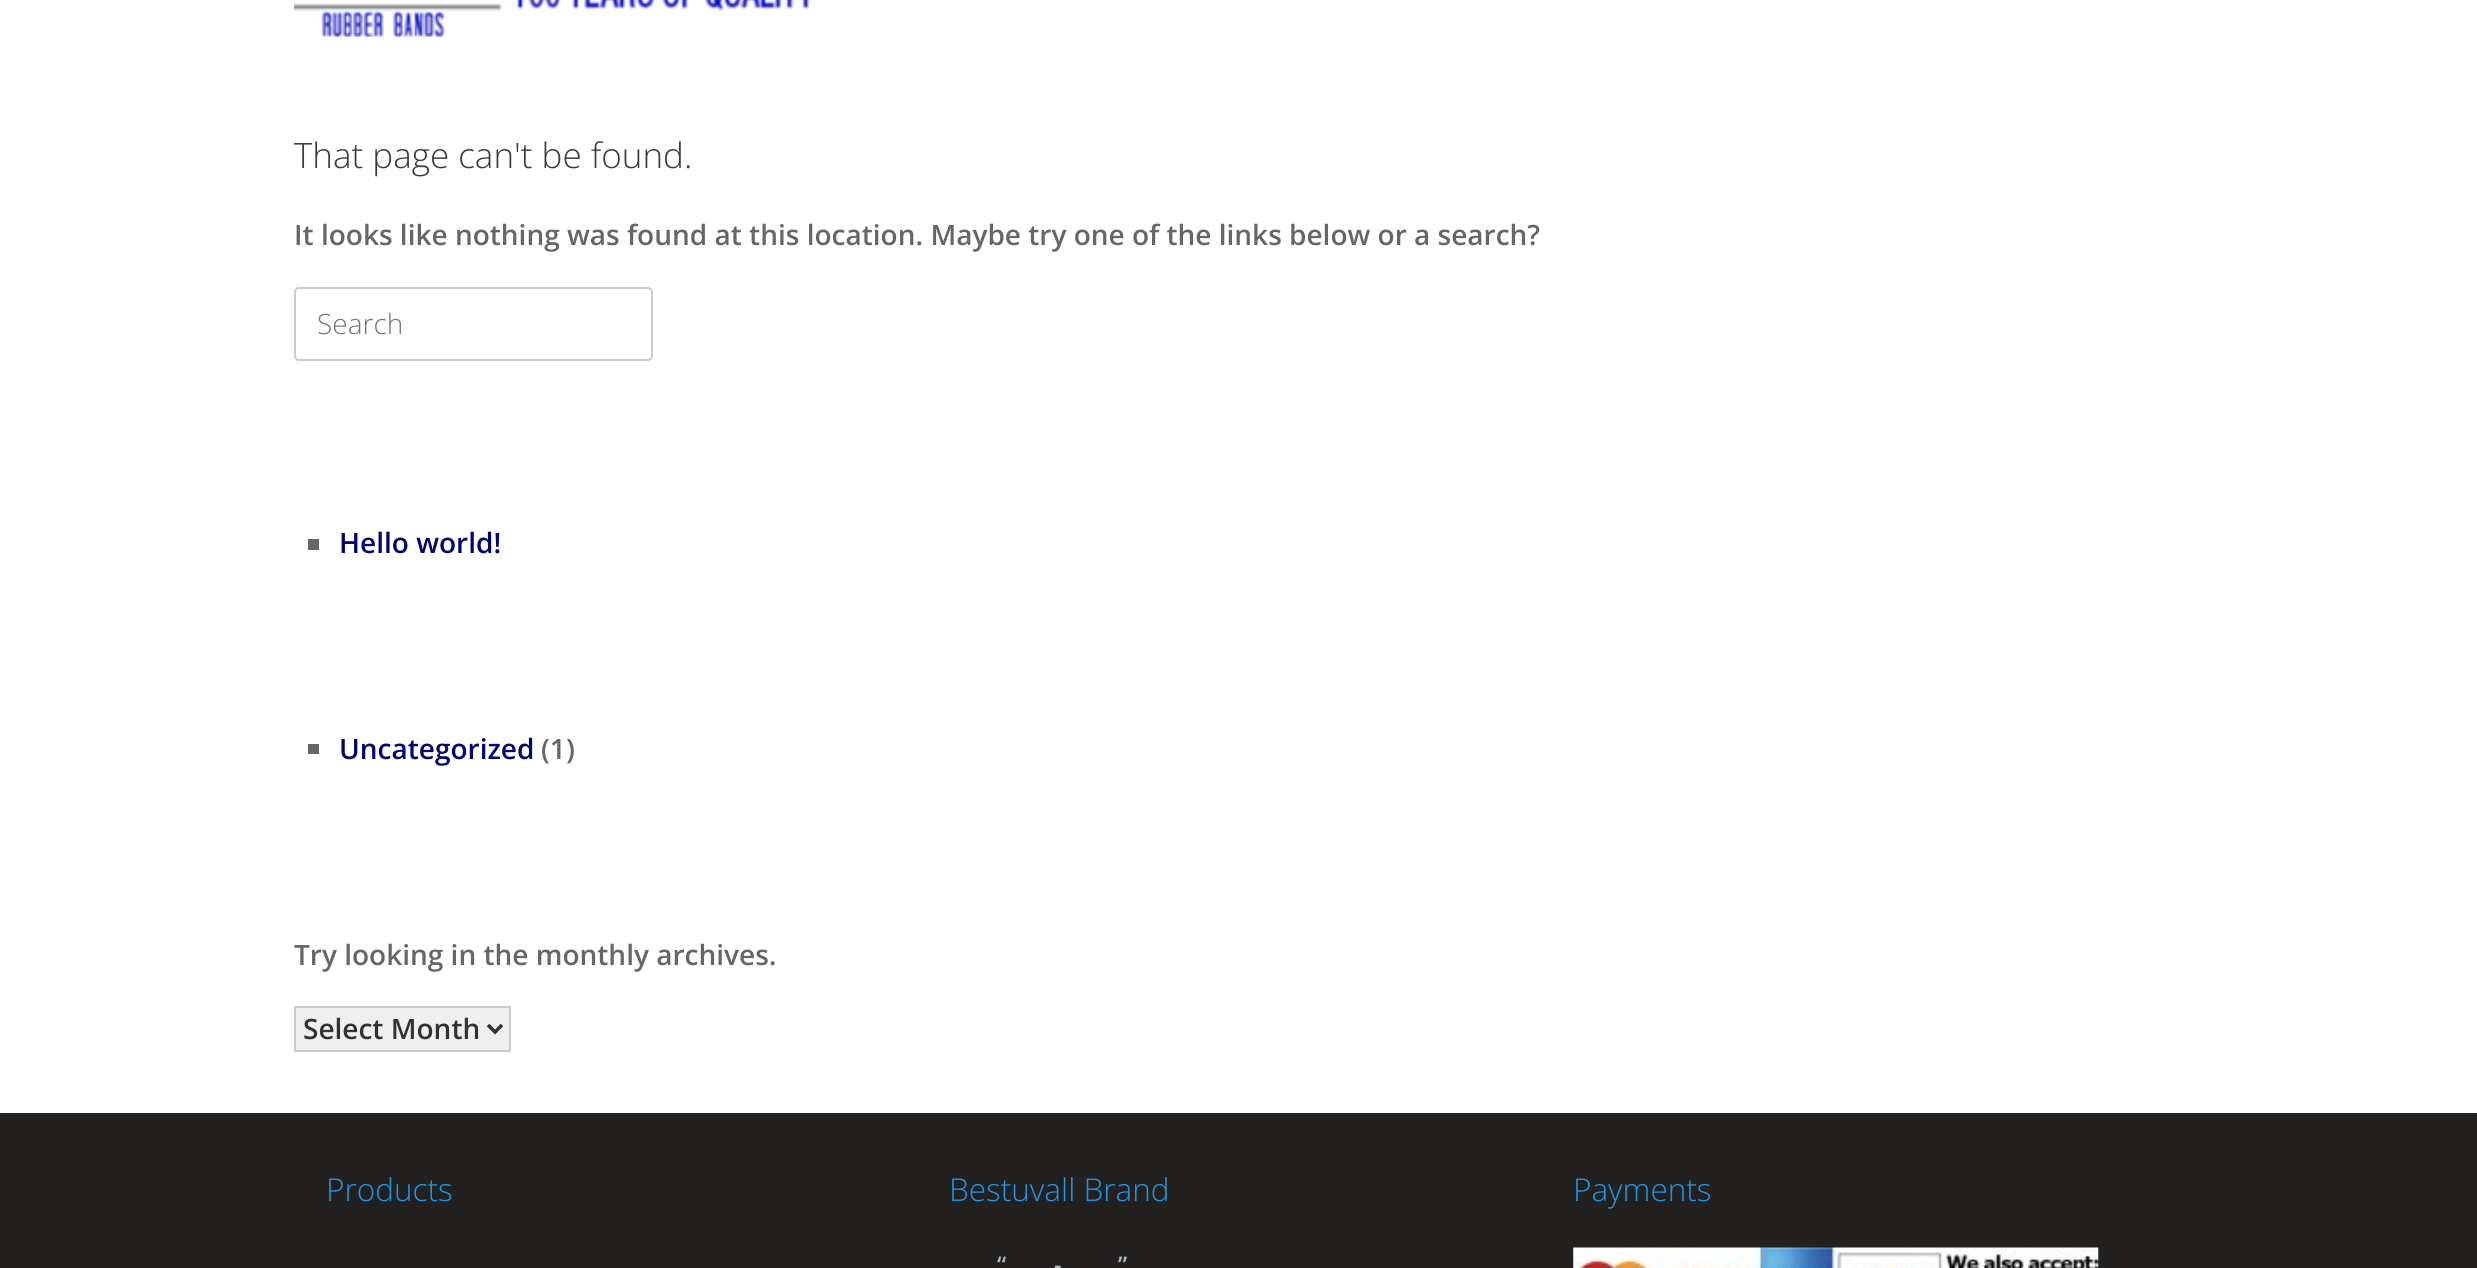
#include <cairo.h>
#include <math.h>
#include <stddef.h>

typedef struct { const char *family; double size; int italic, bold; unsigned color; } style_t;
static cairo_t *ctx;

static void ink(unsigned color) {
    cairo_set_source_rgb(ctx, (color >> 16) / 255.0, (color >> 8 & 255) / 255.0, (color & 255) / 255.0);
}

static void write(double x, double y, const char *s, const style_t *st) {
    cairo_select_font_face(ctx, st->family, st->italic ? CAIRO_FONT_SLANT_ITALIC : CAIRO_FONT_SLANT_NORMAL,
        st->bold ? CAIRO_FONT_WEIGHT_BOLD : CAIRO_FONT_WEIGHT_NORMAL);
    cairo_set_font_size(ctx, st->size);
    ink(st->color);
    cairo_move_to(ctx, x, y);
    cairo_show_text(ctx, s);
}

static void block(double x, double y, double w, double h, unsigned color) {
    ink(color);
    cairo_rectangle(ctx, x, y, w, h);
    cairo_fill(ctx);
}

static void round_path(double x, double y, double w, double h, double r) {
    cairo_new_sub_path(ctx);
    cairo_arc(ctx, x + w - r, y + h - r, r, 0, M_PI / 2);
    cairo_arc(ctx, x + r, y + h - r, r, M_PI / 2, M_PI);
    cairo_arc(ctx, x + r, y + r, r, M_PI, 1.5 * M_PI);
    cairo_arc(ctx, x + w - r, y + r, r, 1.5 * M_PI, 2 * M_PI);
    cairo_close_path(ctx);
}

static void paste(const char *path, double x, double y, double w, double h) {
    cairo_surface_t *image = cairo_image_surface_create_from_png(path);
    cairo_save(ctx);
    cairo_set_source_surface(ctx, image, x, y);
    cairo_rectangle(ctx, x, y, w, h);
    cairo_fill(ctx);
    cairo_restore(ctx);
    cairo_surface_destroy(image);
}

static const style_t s1 = {"Open Sans Light", 35, 0, 0, 0x3b3b3b};
static const style_t s2 = {"Open Sans SemiBold", 28, 0, 0, 0x666666};
static const style_t s3 = {"Open Sans Light", 28, 0, 0, 0x757575};
static const style_t s4 = {"Open Sans SemiBold", 28, 0, 0, 0x00056d};
static const style_t s5 = {"Open Sans SemiBold", 28, 0, 0, 0x333333};
static const style_t s6 = {"Open Sans Light", 31.5, 0, 0, 0x2095e4};
static const style_t s7 = {"Open Sans SemiBold", 23, 0, 0, 0xb9b9b9};

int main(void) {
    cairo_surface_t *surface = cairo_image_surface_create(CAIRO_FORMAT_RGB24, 2477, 1268);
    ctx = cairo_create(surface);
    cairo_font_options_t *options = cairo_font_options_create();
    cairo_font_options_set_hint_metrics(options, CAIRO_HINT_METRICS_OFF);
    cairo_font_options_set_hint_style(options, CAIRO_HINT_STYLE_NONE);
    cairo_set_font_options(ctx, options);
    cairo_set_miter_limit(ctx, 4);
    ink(0x232020);
    cairo_paint(ctx);
    block(0, 0, 2477, 1113, 0xffffff);
    paste("pic1.png", 294, 0, 515, 38);
    write(294, 168, "That page can't be found.", &s1);
    write(294, 245, "It looks like nothing was found at this location. Maybe try one of the links below or a search?", &s2);
    round_path(295, 288, 357, 72, 4);
    ink(0xcccccc);
    cairo_stroke(ctx);
    write(317, 334, "Search", &s3);
    block(308, 539, 11, 11, 0x666666);
    write(339, 553, "Hello world!", &s4);
    block(308, 744, 11, 10, 0x666666);
    write(339, 759, "Uncategorized", &s4);
    write(541, 759, "(1)", &s2);
    write(294, 965, "Try looking in the monthly archives.", &s2);
    ink(0xefefef);
    cairo_rectangle(ctx, 295, 1007, 215, 44);
    cairo_fill_preserve(ctx);
    ink(0xcccccc);
    cairo_stroke(ctx);
    cairo_new_path(ctx);
    cairo_move_to(ctx, 488, 1025);
    cairo_line_to(ctx, 495, 1032);
    cairo_line_to(ctx, 502, 1025);
    ink(0x333333);
    cairo_set_line_width(ctx, 3.5);
    cairo_stroke(ctx);
    write(303, 1039, "Select Month", &s5);
    write(326, 1201, "Products", &s6);
    write(949, 1201, "Bestuvall Brand", &s6);
    write(997, 1273, "“", &s7);
    write(1118, 1273, "”", &s7);
    write(1054, 1273, "-", &s7);
    write(1573, 1201, "Payments", &s6);
    paste("pic2.png", 1573, 1247, 526, 21);
    cairo_surface_write_to_png(surface, "screenshot.png");
    cairo_font_options_destroy(options);
    cairo_destroy(ctx);
    cairo_surface_destroy(surface);
    return 0;
}
